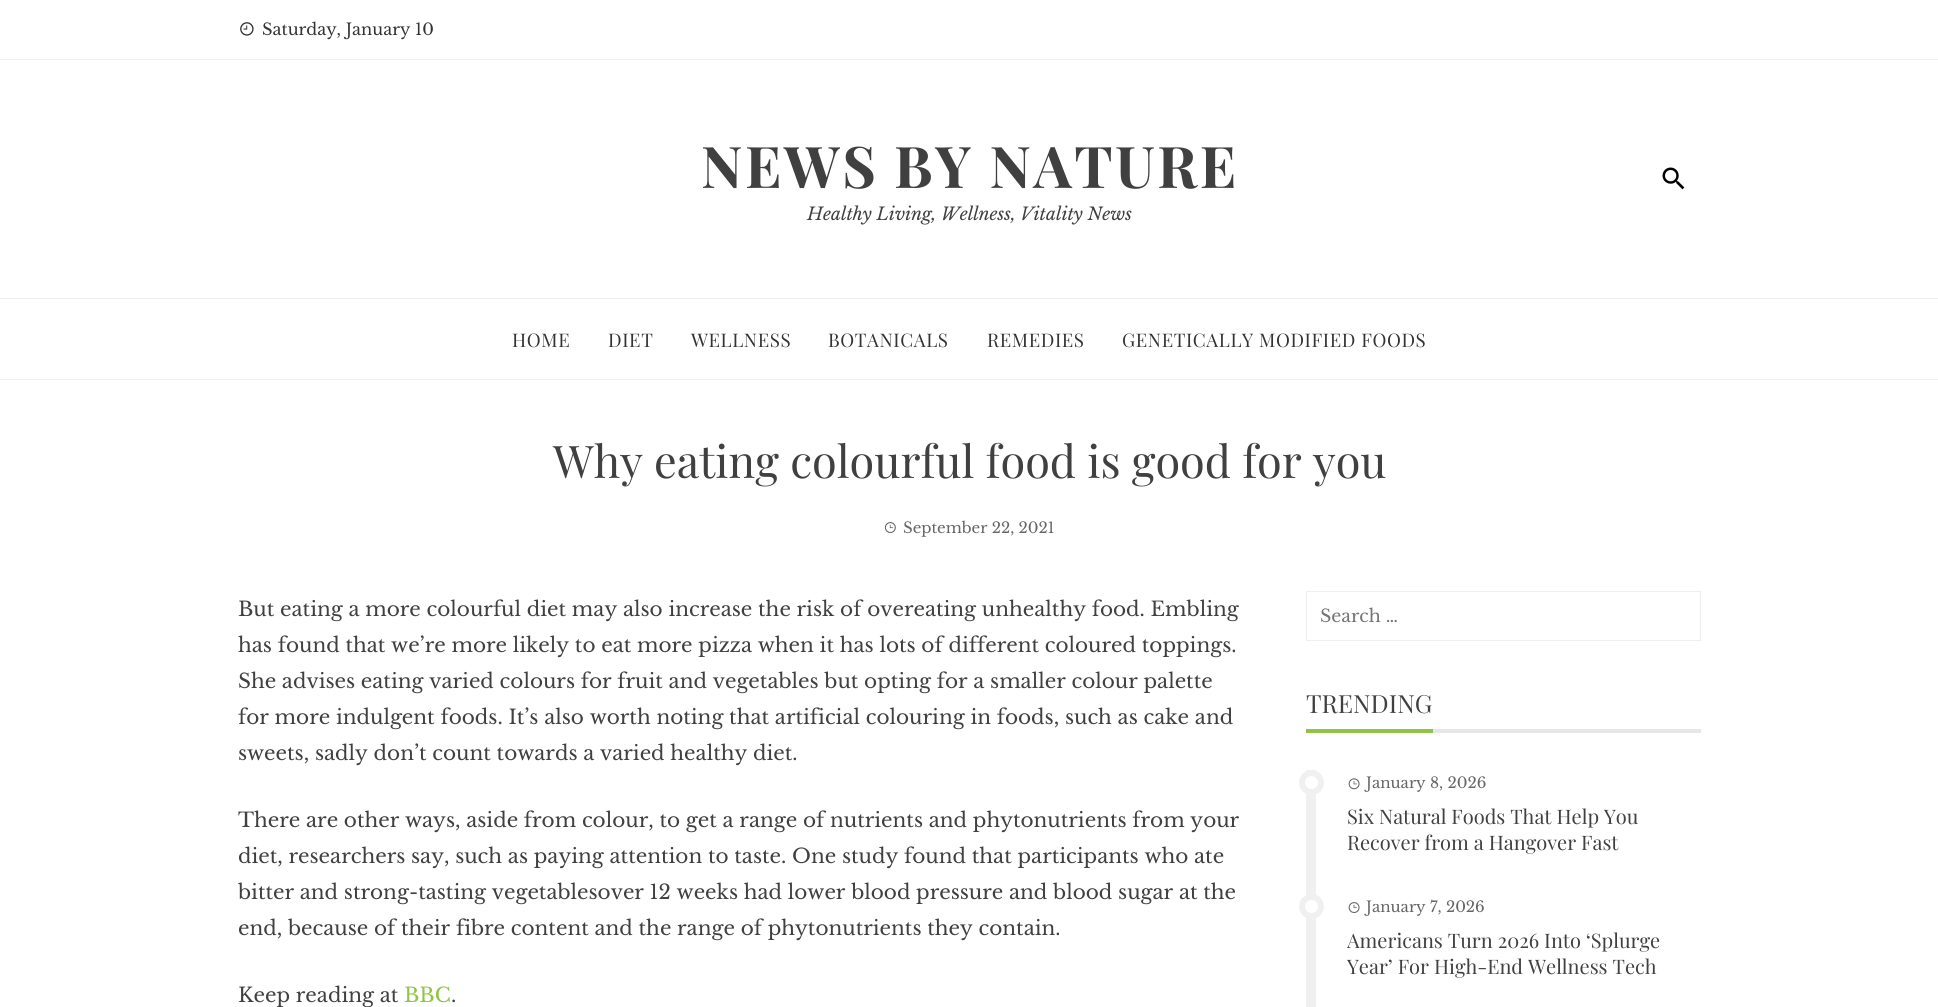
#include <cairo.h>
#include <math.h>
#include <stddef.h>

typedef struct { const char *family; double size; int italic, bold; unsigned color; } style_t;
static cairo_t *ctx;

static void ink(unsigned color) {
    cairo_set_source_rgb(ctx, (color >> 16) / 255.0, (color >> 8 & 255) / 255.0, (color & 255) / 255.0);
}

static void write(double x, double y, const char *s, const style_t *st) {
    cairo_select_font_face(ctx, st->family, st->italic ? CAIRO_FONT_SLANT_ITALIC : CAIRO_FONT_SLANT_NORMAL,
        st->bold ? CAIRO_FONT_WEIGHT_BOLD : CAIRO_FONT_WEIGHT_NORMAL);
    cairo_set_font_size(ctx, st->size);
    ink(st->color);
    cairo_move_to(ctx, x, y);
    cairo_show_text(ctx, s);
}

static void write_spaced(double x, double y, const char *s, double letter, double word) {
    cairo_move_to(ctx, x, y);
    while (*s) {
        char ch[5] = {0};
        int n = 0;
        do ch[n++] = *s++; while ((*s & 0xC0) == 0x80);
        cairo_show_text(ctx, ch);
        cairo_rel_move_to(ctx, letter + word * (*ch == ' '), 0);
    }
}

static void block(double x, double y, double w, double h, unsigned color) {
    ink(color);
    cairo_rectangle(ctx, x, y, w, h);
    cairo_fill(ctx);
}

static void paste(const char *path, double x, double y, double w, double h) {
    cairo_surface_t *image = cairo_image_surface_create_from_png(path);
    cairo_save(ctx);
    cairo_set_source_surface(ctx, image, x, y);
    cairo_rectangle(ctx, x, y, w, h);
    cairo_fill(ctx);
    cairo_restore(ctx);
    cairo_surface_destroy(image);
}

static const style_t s1 = {"Libre Baskerville", 16.25, 0, 0, 0x333333};
static const style_t s2 = {"Libre Baskerville", 17.5, 1, 0, 0x404040};
static const style_t s3 = {"Playfair Display", 45, 0, 0, 0x404040};
static const style_t s4 = {"Libre Baskerville", 15, 0, 0, 0x666666};
static const style_t s5 = {"Libre Baskerville", 20, 0, 0, 0x404040};
static const style_t s6 = {"Libre Baskerville", 20, 0, 0, 0x91c445};
static const style_t s7 = {"Libre Baskerville", 17.5, 0, 0, 0x757575};
static const style_t s8 = {"Playfair Display", 25, 0, 0, 0x404040};
static const style_t s9 = {"Playfair Display", 20, 0, 0, 0x404040};

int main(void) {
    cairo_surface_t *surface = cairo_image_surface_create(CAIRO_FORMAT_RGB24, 1938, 1007);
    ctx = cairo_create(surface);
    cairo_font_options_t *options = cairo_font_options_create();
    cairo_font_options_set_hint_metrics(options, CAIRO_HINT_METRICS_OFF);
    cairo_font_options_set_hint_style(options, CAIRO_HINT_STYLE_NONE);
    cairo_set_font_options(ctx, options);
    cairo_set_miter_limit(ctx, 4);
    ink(0xffffff);
    cairo_paint(ctx);
    block(0, 59, 1938, 1, 0xeeeeee);
    paste("pic1.png", 240, 22, 14, 14);
    write(262, 35, "Saturday, January 10", &s1);
    cairo_select_font_face(ctx, "Playfair Display", CAIRO_FONT_SLANT_NORMAL, CAIRO_FONT_WEIGHT_BOLD);
    cairo_set_font_size(ctx, 57.5);
    ink(0x404040);
    write_spaced(701, 188, "NEWS BY NATURE", 2.5, 0);
    write(807, 220, "Healthy Living, Wellness, Vitality News", &s2);
    paste("pic2.png", 1662, 167, 23, 23);
    block(0, 298, 1938, 1, 0xeeeeee);
    block(0, 379, 1938, 1, 0xeeeeee);
    cairo_select_font_face(ctx, "Playfair Display", CAIRO_FONT_SLANT_NORMAL, CAIRO_FONT_WEIGHT_NORMAL);
    cairo_set_font_size(ctx, 18.75);
    ink(0x333333);
    write_spaced(512, 347, "HOME", 0.6, 0);
    write_spaced(608, 347, "DIET", 0.6, 0);
    write_spaced(691, 347, "WELLNESS", 0.6, 0);
    write_spaced(828, 347, "BOTANICALS", 0.6, 0);
    write_spaced(987, 347, "REMEDIES", 0.6, 0);
    write_spaced(1122, 347, "GENETICALLY MODIFIED FOODS", 0.6, 0);
    write(553, 478, "Why eating colourful food is good for you", &s3);
    paste("pic3.png", 884, 522, 12, 11);
    write(903, 533, "September 22, 2021", &s4);
    write(238, 616, "But eating a more colourful diet may also increase the risk of overeating unhealthy food. Embling", &s5);
    write(238, 652, "has found that we’re more likely to eat more pizza when it has lots of different coloured toppings.", &s5);
    write(238, 688, "She advises eating varied colours for fruit and vegetables but opting for a smaller colour palette", &s5);
    write(238, 724, "for more indulgent foods. It’s also worth noting that artificial colouring in foods, such as cake and", &s5);
    write(238, 760, "sweets, sadly don’t count towards a varied healthy diet.", &s5);
    write(238, 827, "There are other ways, aside from colour, to get a range of nutrients and phytonutrients from your", &s5);
    write(238, 863, "diet, researchers say, such as paying attention to taste. One study found that participants who ate", &s5);
    write(238, 899, "bitter and strong-tasting vegetablesover 12 weeks had lower blood pressure and blood sugar at the", &s5);
    write(238, 935, "end, because of their fibre content and the range of phytonutrients they contain.", &s5);
    write(238, 1002, "Keep reading at", &s5);
    write(404, 1002, "BBC", &s6);
    write(451, 1002, ".", &s5);
    cairo_rectangle(ctx, 1306.5, 591.5, 394, 49);
    ink(0xeeeeee);
    cairo_set_line_width(ctx, 1);
    cairo_stroke(ctx);
    write(1320, 622, "Search …", &s7);
    block(1433, 729, 268, 4, 0xe6e6e6);
    write(1306, 713, "TRENDING", &s8);
    block(1306, 729, 127, 4, 0x91c445);
    block(1306, 770, 10, 237, 0xf0f0f0);
    ink(0xffffff);
    cairo_new_path(ctx);
    cairo_arc(ctx, 1311.5, 782.5, 9.5, 0, 2 * M_PI);
    cairo_fill_preserve(ctx);
    ink(0xf0f0f0);
    cairo_set_line_width(ctx, 6);
    cairo_stroke(ctx);
    paste("pic4.png", 1348, 778, 12, 12);
    write(1366, 788, "January 8, 2026", &s4);
    write(1347, 824, "Six Natural Foods That Help You", &s9);
    write(1347, 850, "Recover from a Hangover Fast", &s9);
    ink(0xffffff);
    cairo_new_path(ctx);
    cairo_arc(ctx, 1311.5, 906.5, 9.5, 0, 2 * M_PI);
    cairo_fill_preserve(ctx);
    ink(0xf0f0f0);
    cairo_stroke(ctx);
    paste("pic5.png", 1348, 902, 12, 11);
    write(1366, 912, "January 7, 2026", &s4);
    write(1347, 948, "Americans Turn 2026 Into ‘Splurge", &s9);
    write(1347, 974, "Year’ For High-End Wellness Tech", &s9);
    cairo_surface_write_to_png(surface, "screenshot.png");
    cairo_font_options_destroy(options);
    cairo_destroy(ctx);
    cairo_surface_destroy(surface);
    return 0;
}
